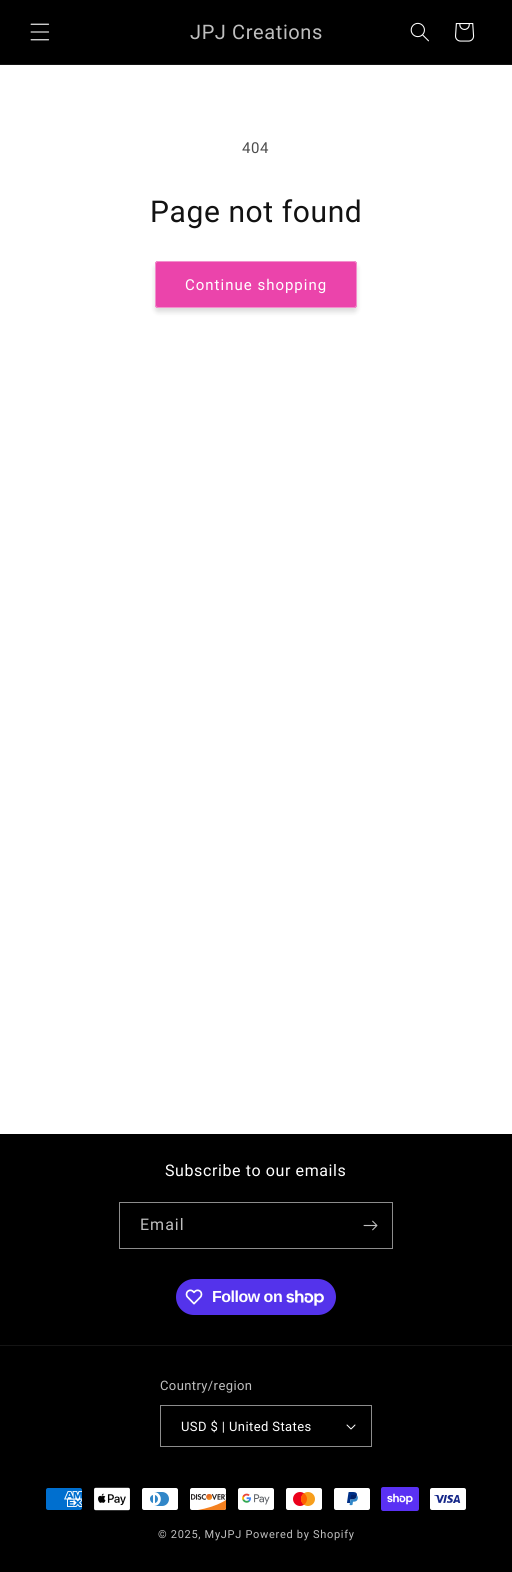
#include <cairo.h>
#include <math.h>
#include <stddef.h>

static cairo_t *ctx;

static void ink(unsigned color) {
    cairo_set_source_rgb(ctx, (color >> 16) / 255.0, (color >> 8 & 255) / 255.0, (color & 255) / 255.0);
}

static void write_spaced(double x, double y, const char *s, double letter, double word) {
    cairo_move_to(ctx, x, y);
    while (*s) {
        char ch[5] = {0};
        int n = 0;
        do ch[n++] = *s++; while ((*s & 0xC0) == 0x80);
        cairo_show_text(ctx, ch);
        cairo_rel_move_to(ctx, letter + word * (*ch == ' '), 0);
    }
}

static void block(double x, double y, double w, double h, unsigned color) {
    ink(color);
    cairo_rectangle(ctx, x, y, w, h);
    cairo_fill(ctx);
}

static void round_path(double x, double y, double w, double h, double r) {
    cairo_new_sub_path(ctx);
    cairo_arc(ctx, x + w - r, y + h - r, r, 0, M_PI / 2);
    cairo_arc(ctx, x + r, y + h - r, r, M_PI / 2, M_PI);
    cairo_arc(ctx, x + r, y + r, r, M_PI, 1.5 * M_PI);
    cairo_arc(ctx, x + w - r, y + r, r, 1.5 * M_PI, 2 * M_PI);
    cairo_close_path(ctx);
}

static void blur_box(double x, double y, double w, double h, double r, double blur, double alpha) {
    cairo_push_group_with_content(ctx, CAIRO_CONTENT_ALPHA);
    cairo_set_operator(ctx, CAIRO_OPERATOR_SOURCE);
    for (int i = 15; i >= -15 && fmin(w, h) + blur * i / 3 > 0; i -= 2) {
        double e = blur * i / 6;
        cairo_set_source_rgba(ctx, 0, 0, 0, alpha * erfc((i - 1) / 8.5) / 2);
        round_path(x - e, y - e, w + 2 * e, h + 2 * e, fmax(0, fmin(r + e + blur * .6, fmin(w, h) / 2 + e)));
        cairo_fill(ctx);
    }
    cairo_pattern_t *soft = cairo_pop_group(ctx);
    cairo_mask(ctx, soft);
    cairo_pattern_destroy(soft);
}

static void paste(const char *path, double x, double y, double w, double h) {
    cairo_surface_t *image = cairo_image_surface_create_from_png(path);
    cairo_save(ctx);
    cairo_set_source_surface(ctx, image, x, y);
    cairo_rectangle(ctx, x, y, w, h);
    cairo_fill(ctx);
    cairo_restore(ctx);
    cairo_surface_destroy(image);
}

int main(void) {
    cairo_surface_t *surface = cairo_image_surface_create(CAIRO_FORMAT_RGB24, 512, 1572);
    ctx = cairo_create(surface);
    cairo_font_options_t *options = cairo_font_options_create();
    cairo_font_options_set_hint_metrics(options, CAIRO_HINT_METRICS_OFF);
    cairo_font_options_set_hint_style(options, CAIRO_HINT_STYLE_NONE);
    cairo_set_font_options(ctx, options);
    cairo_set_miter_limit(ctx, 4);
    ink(0xffffff);
    cairo_paint(ctx);
    block(0, 0, 512, 64, 0x000000);
    block(0, 64, 512, 1, 0x141414);
    paste("pic1.png", 30, 23, 20, 18);
    cairo_select_font_face(ctx, "Roboto", CAIRO_FONT_SLANT_NORMAL, CAIRO_FONT_WEIGHT_NORMAL);
    cairo_set_font_size(ctx, 20);
    ink(0xbfbfbf);
    write_spaced(190, 39, "JPJ Creations", 0.6, 0);
    paste("pic2.png", 410, 22, 19, 20);
    paste("pic3.png", 455, 23, 20, 19);
    cairo_set_font_size(ctx, 15);
    ink(0x4d4d4d);
    write_spaced(242, 153, "404", 0.6, 0);
    cairo_set_font_size(ctx, 30);
    ink(0x121212);
    write_spaced(150, 222, "Page not found", 0.6, 0);
    ink(0x121212);
    blur_box(155, 265, 202, 47, 3, 2.5, 0.15);
    ink(0xeb44ab);
    round_path(155, 261, 202, 47, 3);
    cairo_fill(ctx);
    round_path(155.5, 261.5, 201, 46, 2.5);
    cairo_set_line_width(ctx, 1);
    cairo_stroke(ctx);
    round_path(155.5, 261.5, 201, 46, 2.5);
    cairo_set_source_rgba(ctx, 1, 1, 1, 0.4);
    cairo_stroke(ctx);
    cairo_set_font_size(ctx, 15);
    ink(0xffffff);
    write_spaced(185, 290, "Continue shopping", 1, 0);
    block(0, 1134, 512, 438, 0x000000);
    cairo_set_font_size(ctx, 16);
    ink(0xffffff);
    write_spaced(165, 1176, "Subscribe to our emails", 0.6, 0);
    cairo_rectangle(ctx, 119.5, 1202.5, 273, 46);
    ink(0x8c8c8c);
    cairo_stroke(ctx);
    ink(0xbfbfbf);
    write_spaced(140, 1230, "Email", 1, 0);
    paste("pic4.png", 363, 1220, 15, 11);
    ink(0x5433eb);
    round_path(176, 1279, 160, 36, 18);
    cairo_fill(ctx);
    paste("pic5.png", 185, 1289, 18, 16);
    cairo_select_font_face(ctx, "Liberation Sans", CAIRO_FONT_SLANT_NORMAL, CAIRO_FONT_WEIGHT_BOLD);
    ink(0xffffff);
    write_spaced(212, 1302, "Follow on", -0.5, 0);
    paste("pic6.png", 286, 1290, 38, 16);
    block(0, 1345, 512, 1, 0x141414);
    cairo_select_font_face(ctx, "Roboto", CAIRO_FONT_SLANT_NORMAL, CAIRO_FONT_WEIGHT_NORMAL);
    cairo_set_font_size(ctx, 13);
    ink(0xbfbfbf);
    write_spaced(160, 1390, "Country/region", 0.4, 0);
    paste("pic7.png", 346, 1424, 10, 6);
    cairo_rectangle(ctx, 160.5, 1405.5, 211, 41);
    ink(0x8c8c8c);
    cairo_stroke(ctx);
    ink(0xffffff);
    write_spaced(181, 1431, "USD $ | United States", 0.4, 0);
    paste("pic8.png", 46, 1488, 36, 22);
    paste("pic9.png", 94, 1487, 36, 24);
    paste("pic10.png", 142, 1488, 36, 22);
    paste("pic11.png", 190, 1488, 37, 22);
    paste("pic12.png", 238, 1488, 36, 22);
    paste("pic13.png", 286, 1488, 36, 22);
    paste("pic14.png", 334, 1488, 36, 22);
    paste("pic15.png", 381, 1487, 38, 24);
    paste("pic16.png", 430, 1488, 36, 22);
    cairo_set_font_size(ctx, 11);
    ink(0xbfbfbf);
    write_spaced(158, 1538, "© 2025, MyJPJ Powered by Shopify", 0.7, 0);
    cairo_surface_write_to_png(surface, "screenshot.png");
    cairo_font_options_destroy(options);
    cairo_destroy(ctx);
    cairo_surface_destroy(surface);
    return 0;
}
